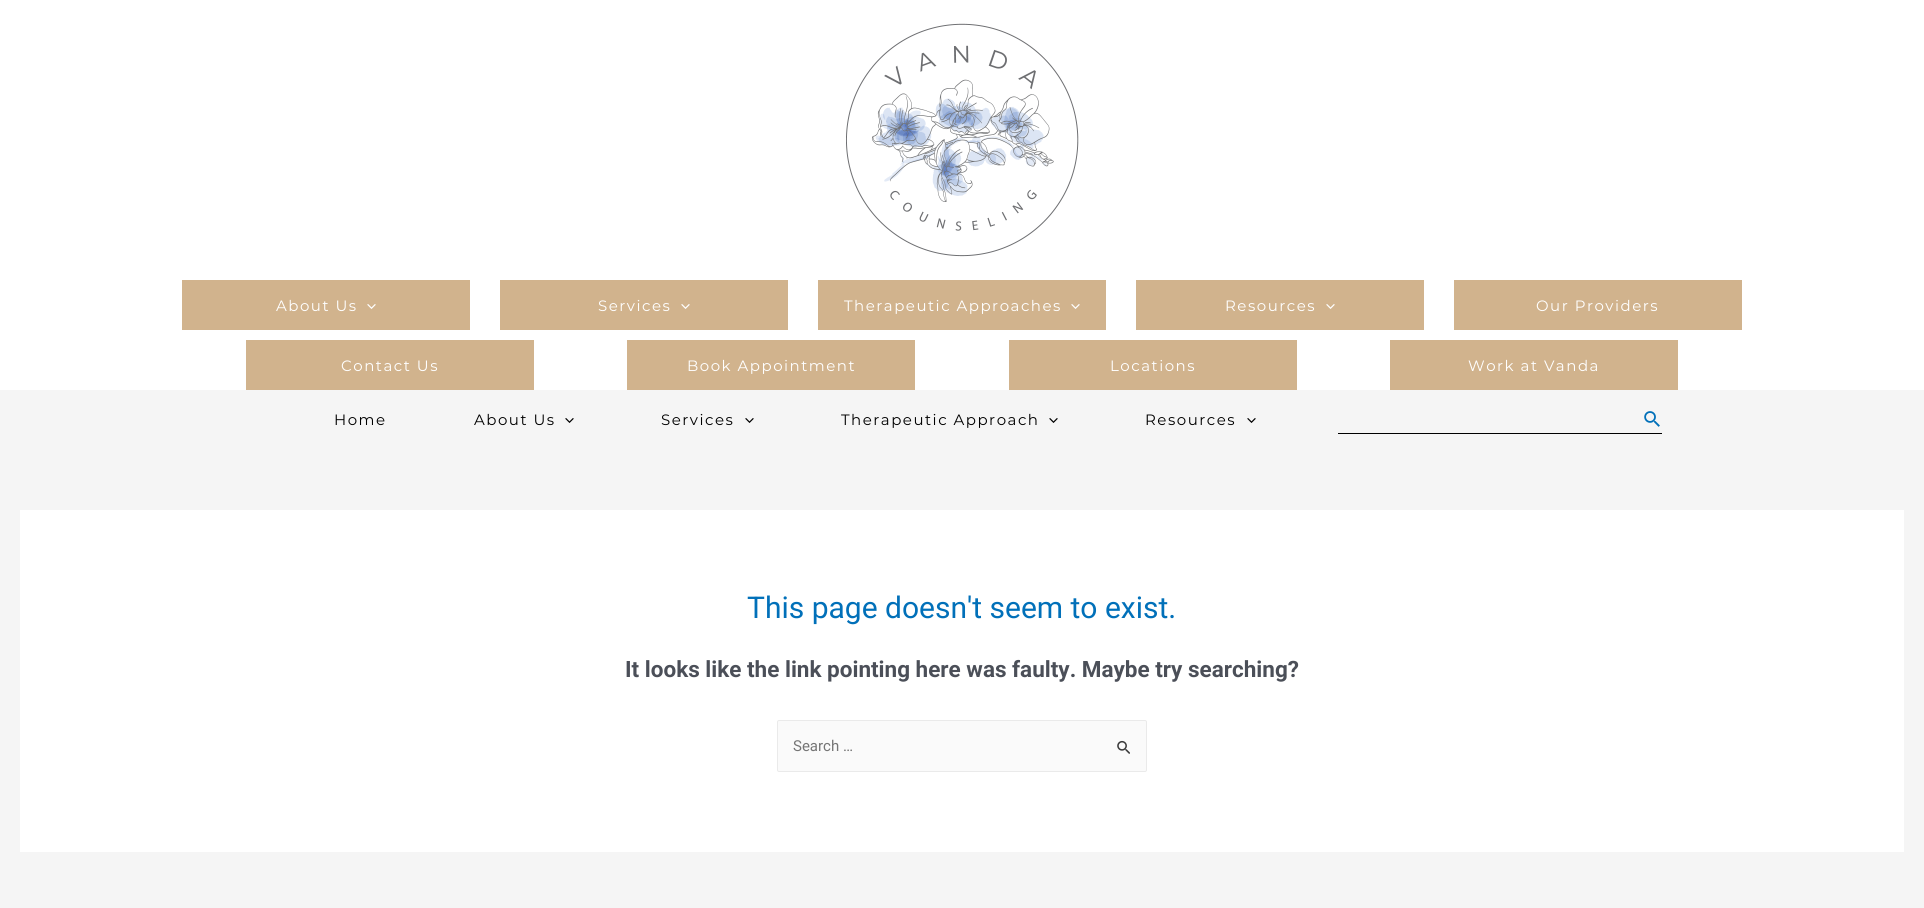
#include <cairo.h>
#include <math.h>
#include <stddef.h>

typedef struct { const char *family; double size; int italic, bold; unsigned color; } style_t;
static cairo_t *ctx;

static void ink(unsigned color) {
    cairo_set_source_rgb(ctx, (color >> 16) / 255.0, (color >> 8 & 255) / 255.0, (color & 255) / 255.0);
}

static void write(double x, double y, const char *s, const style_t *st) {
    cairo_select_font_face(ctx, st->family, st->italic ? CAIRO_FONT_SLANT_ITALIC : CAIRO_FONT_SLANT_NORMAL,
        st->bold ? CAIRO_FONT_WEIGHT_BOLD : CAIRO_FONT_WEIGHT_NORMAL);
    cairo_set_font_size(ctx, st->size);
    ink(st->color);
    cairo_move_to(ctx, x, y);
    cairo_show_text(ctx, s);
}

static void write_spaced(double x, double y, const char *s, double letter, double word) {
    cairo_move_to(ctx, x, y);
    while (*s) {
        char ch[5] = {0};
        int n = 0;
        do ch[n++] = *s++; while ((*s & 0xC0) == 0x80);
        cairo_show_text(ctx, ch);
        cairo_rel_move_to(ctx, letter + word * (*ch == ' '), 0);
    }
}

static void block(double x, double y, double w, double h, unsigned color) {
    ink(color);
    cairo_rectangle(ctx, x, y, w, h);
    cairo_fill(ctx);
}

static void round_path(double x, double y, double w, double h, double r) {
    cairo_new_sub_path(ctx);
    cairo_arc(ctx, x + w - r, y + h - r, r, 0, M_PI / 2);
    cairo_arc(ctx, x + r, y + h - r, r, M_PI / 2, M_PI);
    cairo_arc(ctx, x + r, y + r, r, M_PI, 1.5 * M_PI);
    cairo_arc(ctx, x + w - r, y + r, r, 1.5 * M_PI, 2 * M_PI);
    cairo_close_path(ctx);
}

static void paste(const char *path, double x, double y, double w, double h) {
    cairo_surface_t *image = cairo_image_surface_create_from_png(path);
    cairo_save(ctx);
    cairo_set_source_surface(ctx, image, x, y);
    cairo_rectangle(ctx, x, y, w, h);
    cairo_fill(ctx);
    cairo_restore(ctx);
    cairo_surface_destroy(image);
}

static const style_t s1 = {"Roboto", 30, 0, 0, 0x0170b9};
static const style_t s2 = {"Roboto", 22.5, 0, 1, 0x4b4f58};
static const style_t s3 = {"Roboto", 15, 0, 0, 0x757575};

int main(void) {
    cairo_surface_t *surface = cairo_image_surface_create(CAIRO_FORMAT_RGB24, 1924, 908);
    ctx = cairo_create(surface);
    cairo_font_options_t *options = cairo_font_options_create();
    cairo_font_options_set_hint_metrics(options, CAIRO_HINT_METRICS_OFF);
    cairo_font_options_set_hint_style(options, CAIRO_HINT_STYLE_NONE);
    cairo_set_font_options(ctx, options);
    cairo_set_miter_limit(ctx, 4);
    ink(0xf5f5f5);
    cairo_paint(ctx);
    block(0, 0, 1924, 390, 0xffffff);
    paste("pic1.png", 846, 23, 233, 234);
    block(182, 280, 288, 50, 0xd1b38d);
    cairo_select_font_face(ctx, "Montserrat", CAIRO_FONT_SLANT_NORMAL, CAIRO_FONT_WEIGHT_NORMAL);
    cairo_set_font_size(ctx, 15);
    ink(0xffffff);
    write_spaced(276, 311, "About Us", 1.5, 0);
    paste("pic2.png", 367, 304, 9, 5);
    block(500, 280, 288, 50, 0xd1b38d);
    ink(0xffffff);
    write_spaced(598, 311, "Services", 1.5, 0);
    paste("pic2.png", 681, 304, 9, 5);
    block(818, 280, 288, 50, 0xd1b38d);
    ink(0xffffff);
    write_spaced(844, 311, "Therapeutic Approaches", 1.5, 0);
    paste("pic2.png", 1071, 304, 9, 5);
    block(1136, 280, 288, 50, 0xd1b38d);
    ink(0xffffff);
    write_spaced(1225, 311, "Resources", 1.5, 0);
    paste("pic2.png", 1326, 304, 9, 5);
    block(1454, 280, 288, 50, 0xd1b38d);
    ink(0xffffff);
    write_spaced(1536, 311, "Our Providers", 1.5, 0);
    block(246, 340, 288, 50, 0xd1b38d);
    ink(0xffffff);
    write_spaced(341, 371, "Contact Us", 1.5, 0);
    block(627, 340, 288, 50, 0xd1b38d);
    ink(0xffffff);
    write_spaced(687, 371, "Book Appointment", 1.5, 0);
    block(1009, 340, 288, 50, 0xd1b38d);
    ink(0xffffff);
    write_spaced(1110, 371, "Locations", 1.5, 0);
    block(1390, 340, 288, 50, 0xd1b38d);
    ink(0xffffff);
    write_spaced(1468, 371, "Work at Vanda", 1.5, 0);
    ink(0x000000);
    write_spaced(334, 425, "Home", 1.5, 0);
    write_spaced(474, 425, "About Us", 1.5, 0);
    paste("pic3.png", 565, 418, 9, 5);
    write_spaced(661, 425, "Services", 1.5, 0);
    paste("pic3.png", 745, 418, 9, 5);
    write_spaced(841, 425, "Therapeutic Approach", 1.5, 0);
    paste("pic3.png", 1049, 418, 9, 5);
    write_spaced(1145, 425, "Resources", 1.5, 0);
    paste("pic3.png", 1247, 418, 9, 5);
    block(1338, 433, 324, 1, 0x000000);
    paste("pic4.png", 1644, 411, 16, 16);
    block(20, 510, 1884, 342, 0xffffff);
    write(747, 618, "This page doesn't seem to exist.", &s1);
    write(625, 677, "It looks like the link pointing here was faulty. Maybe try searching?", &s2);
    ink(0xfafafa);
    round_path(777.5, 720.5, 369, 51, 1.5);
    cairo_fill_preserve(ctx);
    ink(0xeaeaea);
    cairo_set_line_width(ctx, 1);
    cairo_stroke(ctx);
    write(793, 751, "Search …", &s3);
    paste("pic5.png", 1117, 740, 13, 14);
    cairo_surface_write_to_png(surface, "screenshot.png");
    cairo_font_options_destroy(options);
    cairo_destroy(ctx);
    cairo_surface_destroy(surface);
    return 0;
}
